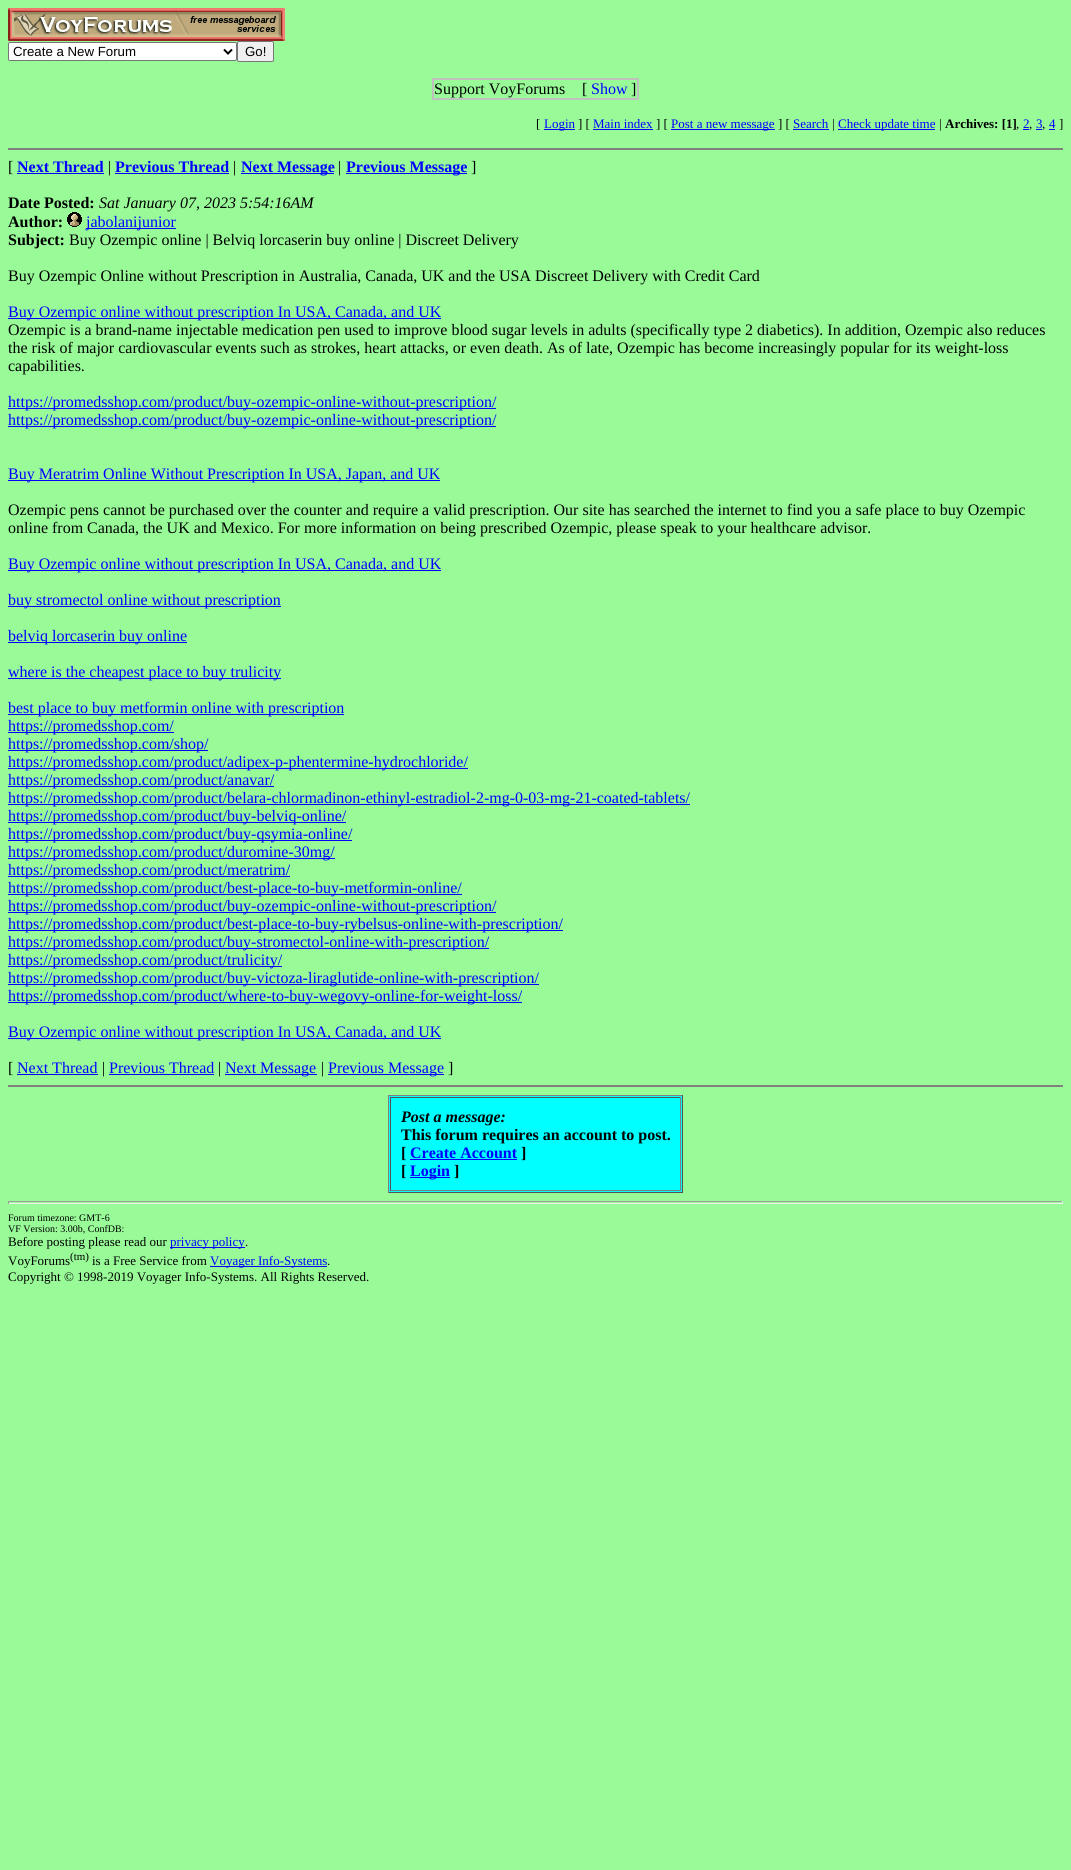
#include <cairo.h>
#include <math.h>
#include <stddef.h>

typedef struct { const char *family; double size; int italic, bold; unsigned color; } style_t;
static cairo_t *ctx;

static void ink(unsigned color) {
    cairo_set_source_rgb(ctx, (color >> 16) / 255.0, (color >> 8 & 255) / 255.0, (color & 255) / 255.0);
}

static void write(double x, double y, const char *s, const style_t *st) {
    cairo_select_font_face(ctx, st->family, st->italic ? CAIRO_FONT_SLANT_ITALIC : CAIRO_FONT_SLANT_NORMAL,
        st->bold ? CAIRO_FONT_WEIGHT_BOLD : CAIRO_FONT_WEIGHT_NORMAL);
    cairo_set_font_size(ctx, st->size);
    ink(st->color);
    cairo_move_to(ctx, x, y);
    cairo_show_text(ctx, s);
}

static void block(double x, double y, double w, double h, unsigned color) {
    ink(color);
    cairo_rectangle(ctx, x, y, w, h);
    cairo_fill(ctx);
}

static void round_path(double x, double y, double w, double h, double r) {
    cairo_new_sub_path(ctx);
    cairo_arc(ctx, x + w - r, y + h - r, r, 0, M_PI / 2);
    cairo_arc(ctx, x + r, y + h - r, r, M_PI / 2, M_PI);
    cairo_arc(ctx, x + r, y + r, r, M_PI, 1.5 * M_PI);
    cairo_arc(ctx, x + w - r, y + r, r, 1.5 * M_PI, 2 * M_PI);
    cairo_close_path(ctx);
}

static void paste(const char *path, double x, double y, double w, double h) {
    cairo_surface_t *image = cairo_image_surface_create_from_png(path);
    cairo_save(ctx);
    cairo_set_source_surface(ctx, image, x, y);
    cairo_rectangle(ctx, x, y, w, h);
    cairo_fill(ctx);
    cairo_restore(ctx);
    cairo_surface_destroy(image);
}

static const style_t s1 = {"Liberation Sans", 13.25, 0, 0, 0x000000};
static const style_t s2 = {"Liberation Serif", 16, 0, 0, 0x000000};
static const style_t s3 = {"Liberation Serif", 16, 0, 0, 0x0000ff};
static const style_t s4 = {"Liberation Serif", 13, 0, 0, 0x000000};
static const style_t s5 = {"Liberation Serif", 13, 0, 0, 0x0000ff};
static const style_t s6 = {"Liberation Serif", 13, 0, 1, 0x000000};
static const style_t s7 = {"Liberation Serif", 16, 0, 1, 0x0000ff};
static const style_t s8 = {"Liberation Serif", 16, 0, 1, 0x000000};
static const style_t s9 = {"Liberation Serif", 16, 1, 0, 0x000000};
static const style_t s10 = {"Liberation Serif", 16, 1, 1, 0x000000};
static const style_t s11 = {"Liberation Serif", 10, 0, 0, 0x000000};
static const style_t s12 = {"Liberation Serif", 11, 0, 0, 0x000000};

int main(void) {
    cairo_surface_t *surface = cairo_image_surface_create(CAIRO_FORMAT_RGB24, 1071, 1870);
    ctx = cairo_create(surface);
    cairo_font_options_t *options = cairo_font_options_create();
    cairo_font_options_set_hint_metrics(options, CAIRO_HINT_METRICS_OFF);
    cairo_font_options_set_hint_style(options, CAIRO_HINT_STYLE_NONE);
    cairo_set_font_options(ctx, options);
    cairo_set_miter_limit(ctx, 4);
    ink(0x98fb98);
    cairo_paint(ctx);
    paste("pic1.png", 8, 8, 277, 33);
    ink(0xffffff);
    round_path(8.5, 42.5, 228, 18, 1.5);
    cairo_fill_preserve(ctx);
    ink(0x767676);
    cairo_set_line_width(ctx, 1);
    cairo_stroke(ctx);
    cairo_new_path(ctx);
    cairo_move_to(ctx, 224, 49.5);
    cairo_line_to(ctx, 228, 53.5);
    cairo_line_to(ctx, 232, 49.5);
    ink(0x000000);
    cairo_set_line_width(ctx, 2);
    cairo_stroke(ctx);
    write(13, 56, "Create a New Forum", &s1);
    ink(0xefefef);
    round_path(237.5, 41.5, 36, 20, 1.5);
    cairo_fill_preserve(ctx);
    ink(0x767676);
    cairo_set_line_width(ctx, 1);
    cairo_stroke(ctx);
    write(245, 56, "Go!", &s1);
    cairo_rectangle(ctx, 433, 79, 205, 20);
    ink(0xc0c0c0);
    cairo_set_line_width(ctx, 2);
    cairo_stroke(ctx);
    write(434, 94, "Support VoyForums", &s2);
    write(582, 94, "[", &s2);
    write(591, 94, "Show", &s3);
    write(631, 94, "]", &s2);
    write(536, 128, "[", &s4);
    block(544, 129, 31, 1, 0x0000ff);
    write(544, 128, "Login", &s5);
    write(578, 128, "] [", &s4);
    write(593, 128, "Main index", &s5);
    block(593, 129, 60, 1, 0x0000ff);
    write(656, 128, "] [", &s4);
    block(671, 129, 104, 1, 0x0000ff);
    write(671, 128, "Post a new message", &s5);
    write(778, 128, "] [", &s4);
    write(793, 128, "Search", &s5);
    block(793, 129, 36, 1, 0x0000ff);
    write(832, 128, "|", &s4);
    block(838, 129, 97, 1, 0x0000ff);
    write(838, 128, "Check update time", &s5);
    write(939, 128, "|", &s4);
    write(945, 128, "Archives: [1]", &s6);
    write(1016, 128, ",", &s4);
    write(1023, 128, "2", &s5);
    write(1029, 128, ",", &s4);
    block(1023, 129, 6, 1, 0x0000ff);
    write(1036, 128, "3", &s5);
    write(1042, 128, ",", &s4);
    block(1036, 129, 6, 1, 0x0000ff);
    block(1049, 129, 6, 1, 0x0000ff);
    write(1049, 128, "4", &s5);
    write(1059, 128, "]", &s4);
    block(8, 148, 1055, 2, 0x808080);
    write(8, 172, "[", &s2);
    write(17, 172, "Next Thread", &s7);
    block(17, 173, 87, 1, 0x0000ff);
    write(108, 172, "|", &s2);
    write(115, 172, "Previous Thread", &s7);
    block(115, 173, 114, 1, 0x0000ff);
    write(233, 172, "|", &s2);
    block(241, 173, 93, 1, 0x0000ff);
    write(241, 172, "Next Message", &s7);
    write(338, 172, "|", &s2);
    block(346, 173, 121, 1, 0x0000ff);
    write(346, 172, "Previous Message", &s7);
    write(471, 172, "]", &s2);
    write(8, 208, "Date Posted:", &s8);
    write(99, 208, "Sat January 07, 2023 5:54:16AM", &s9);
    write(8, 227, "Author:", &s8);
    paste("pic2.png", 67, 212, 15, 15);
    block(86, 228, 90, 1, 0x0000ff);
    write(86, 227, "jabolanijunior", &s3);
    write(8, 245, "Subject:", &s8);
    write(69, 245, "Buy Ozempic online | Belviq lorcaserin buy online | Discreet Delivery", &s2);
    write(8, 281, "Buy Ozempic Online without Prescription in Australia, Canada, UK and the USA Discreet Delivery with Credit Card", &s2);
    block(8, 318, 433, 1, 0x0000ff);
    write(8, 317, "Buy Ozempic online without prescription In USA, Canada, and UK", &s3);
    write(8, 335, "Ozempic is a brand-name injectable medication pen used to improve blood sugar levels in adults (specifically type 2 diabetics). In addition, Ozempic also reduces", &s2);
    write(8, 353, "the risk of major cardiovascular events such as strokes, heart attacks, or even death. As of late, Ozempic has become increasingly popular for its weight-loss", &s2);
    write(8, 371, "capabilities.", &s2);
    block(8, 408, 488, 1, 0x0000ff);
    write(8, 407, "https://promedsshop.com/product/buy-ozempic-online-without-prescription/", &s3);
    block(8, 426, 488, 1, 0x0000ff);
    write(8, 425, "https://promedsshop.com/product/buy-ozempic-online-without-prescription/", &s3);
    block(8, 480, 432, 1, 0x0000ff);
    write(8, 479, "Buy Meratrim Online Without Prescription In USA, Japan, and UK", &s3);
    write(8, 515, "Ozempic pens cannot be purchased over the counter and require a valid prescription. Our site has searched the internet to find you a safe place to buy Ozempic", &s2);
    write(8, 533, "online from Canada, the UK and Mexico. For more information on being prescribed Ozempic, please speak to your healthcare advisor.", &s2);
    block(8, 570, 433, 1, 0x0000ff);
    write(8, 569, "Buy Ozempic online without prescription In USA, Canada, and UK", &s3);
    block(8, 606, 273, 1, 0x0000ff);
    write(8, 605, "buy stromectol online without prescription", &s3);
    block(8, 642, 179, 1, 0x0000ff);
    write(8, 641, "belviq lorcaserin buy online", &s3);
    block(8, 678, 273, 1, 0x0000ff);
    write(8, 677, "where is the cheapest place to buy trulicity", &s3);
    block(8, 714, 336, 1, 0x0000ff);
    write(8, 713, "best place to buy metformin online with prescription", &s3);
    block(8, 732, 166, 1, 0x0000ff);
    write(8, 731, "https://promedsshop.com/", &s3);
    block(8, 750, 200, 1, 0x0000ff);
    write(8, 749, "https://promedsshop.com/shop/", &s3);
    block(8, 768, 460, 1, 0x0000ff);
    write(8, 767, "https://promedsshop.com/product/adipex-p-phentermine-hydrochloride/", &s3);
    block(8, 786, 266, 1, 0x0000ff);
    write(8, 785, "https://promedsshop.com/product/anavar/", &s3);
    block(8, 804, 682, 1, 0x0000ff);
    write(8, 803, "https://promedsshop.com/product/belara-chlormadinon-ethinyl-estradiol-2-mg-0-03-mg-21-coated-tablets/", &s3);
    block(8, 822, 338, 1, 0x0000ff);
    write(8, 821, "https://promedsshop.com/product/buy-belviq-online/", &s3);
    block(8, 840, 344, 1, 0x0000ff);
    write(8, 839, "https://promedsshop.com/product/buy-qsymia-online/", &s3);
    block(8, 858, 327, 1, 0x0000ff);
    write(8, 857, "https://promedsshop.com/product/duromine-30mg/", &s3);
    block(8, 876, 282, 1, 0x0000ff);
    write(8, 875, "https://promedsshop.com/product/meratrim/", &s3);
    block(8, 894, 454, 1, 0x0000ff);
    write(8, 893, "https://promedsshop.com/product/best-place-to-buy-metformin-online/", &s3);
    block(8, 912, 488, 1, 0x0000ff);
    write(8, 911, "https://promedsshop.com/product/buy-ozempic-online-without-prescription/", &s3);
    block(8, 930, 555, 1, 0x0000ff);
    write(8, 929, "https://promedsshop.com/product/best-place-to-buy-rybelsus-online-with-prescription/", &s3);
    block(8, 948, 481, 1, 0x0000ff);
    write(8, 947, "https://promedsshop.com/product/buy-stromectol-online-with-prescription/", &s3);
    block(8, 966, 274, 1, 0x0000ff);
    write(8, 965, "https://promedsshop.com/product/trulicity/", &s3);
    block(8, 984, 531, 1, 0x0000ff);
    write(8, 983, "https://promedsshop.com/product/buy-victoza-liraglutide-online-with-prescription/", &s3);
    block(8, 1002, 514, 1, 0x0000ff);
    write(8, 1001, "https://promedsshop.com/product/where-to-buy-wegovy-online-for-weight-loss/", &s3);
    block(8, 1038, 433, 1, 0x0000ff);
    write(8, 1037, "Buy Ozempic online without prescription In USA, Canada, and UK", &s3);
    write(8, 1073, "[", &s2);
    write(17, 1073, "Next Thread", &s3);
    block(17, 1074, 81, 1, 0x0000ff);
    write(102, 1073, "|", &s2);
    write(109, 1073, "Previous Thread", &s3);
    block(109, 1074, 105, 1, 0x0000ff);
    write(218, 1073, "|", &s2);
    block(225, 1074, 92, 1, 0x0000ff);
    write(225, 1073, "Next Message", &s3);
    write(321, 1073, "|", &s2);
    block(328, 1074, 116, 1, 0x0000ff);
    write(328, 1073, "Previous Message", &s3);
    write(448, 1073, "]", &s2);
    block(8, 1085, 1055, 2, 0x808080);
    block(389, 1096, 293, 96, 0x00ffff);
    block(388, 1095, 295, 1, 0x808080);
    block(682, 1095, 1, 98, 0x555555);
    block(388, 1192, 295, 1, 0x555555);
    block(388, 1095, 1, 98, 0x808080);
    block(390, 1097, 291, 1, 0x555555);
    block(680, 1097, 1, 94, 0x808080);
    block(390, 1190, 291, 1, 0x808080);
    block(390, 1097, 1, 94, 0x555555);
    write(401, 1122, "Post a message:", &s10);
    write(401, 1140, "This forum requires an account to post.", &s8);
    write(401, 1158, "[", &s8);
    write(410, 1158, "Create Account", &s7);
    block(410, 1159, 107, 1, 0x0000ff);
    write(521, 1158, "]", &s8);
    write(401, 1176, "[", &s8);
    block(410, 1177, 40, 1, 0x0000ff);
    write(410, 1176, "Login", &s7);
    write(454, 1176, "]", &s8);
    block(8, 1201, 1055, 1, 0x9f9f9f);
    block(1062, 1201, 1, 3, 0xeeeeee);
    block(8, 1203, 1055, 1, 0xeeeeee);
    block(8, 1201, 1, 3, 0x9f9f9f);
    write(8, 1221, "Forum timezone: GMT-6", &s11);
    write(8, 1232, "VF Version: 3.00b, ConfDB:", &s11);
    write(8, 1246, "Before posting please read our", &s4);
    block(170, 1247, 75, 1, 0x0000ff);
    write(170, 1246, "privacy policy", &s5);
    write(245, 1246, ".", &s4);
    write(8, 1265, "VoyForums", &s4);
    write(70, 1260, "(tm)", &s12);
    write(92, 1265, "is a Free Service from", &s4);
    block(210, 1266, 117, 1, 0x0000ff);
    write(210, 1265, "Voyager Info-Systems", &s5);
    write(327, 1265, ".", &s4);
    write(8, 1281, "Copyright © 1998-2019 Voyager Info-Systems. All Rights Reserved.", &s4);
    cairo_surface_write_to_png(surface, "screenshot.png");
    cairo_font_options_destroy(options);
    cairo_destroy(ctx);
    cairo_surface_destroy(surface);
    return 0;
}
